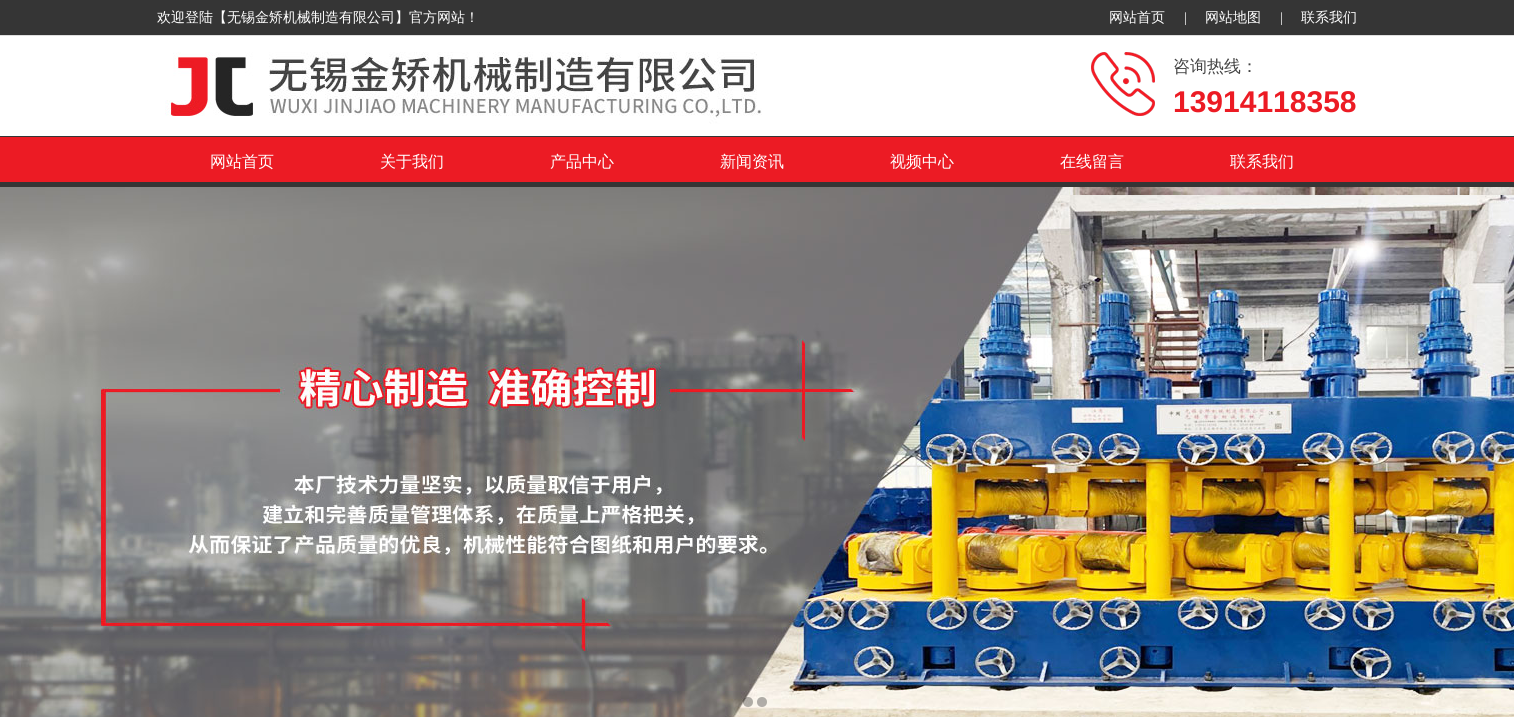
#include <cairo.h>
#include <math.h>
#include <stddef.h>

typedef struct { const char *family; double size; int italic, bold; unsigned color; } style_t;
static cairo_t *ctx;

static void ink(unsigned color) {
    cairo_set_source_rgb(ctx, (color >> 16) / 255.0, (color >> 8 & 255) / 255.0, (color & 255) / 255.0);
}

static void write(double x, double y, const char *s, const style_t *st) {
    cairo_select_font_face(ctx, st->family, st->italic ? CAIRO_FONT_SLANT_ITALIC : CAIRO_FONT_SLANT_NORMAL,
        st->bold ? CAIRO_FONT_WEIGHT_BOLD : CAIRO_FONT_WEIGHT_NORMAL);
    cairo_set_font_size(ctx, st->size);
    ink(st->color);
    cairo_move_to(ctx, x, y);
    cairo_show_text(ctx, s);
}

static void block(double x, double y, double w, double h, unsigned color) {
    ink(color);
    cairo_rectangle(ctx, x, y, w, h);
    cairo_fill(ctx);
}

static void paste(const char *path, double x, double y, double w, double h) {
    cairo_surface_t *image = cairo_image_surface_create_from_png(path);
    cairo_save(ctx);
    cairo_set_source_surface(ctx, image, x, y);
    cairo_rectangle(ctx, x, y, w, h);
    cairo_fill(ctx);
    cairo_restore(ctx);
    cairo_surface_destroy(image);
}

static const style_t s1 = {"WenQuanYi Zen Hei Medium", 14, 0, 0, 0xffffff};
static const style_t s2 = {"Liberation Serif", 14, 0, 0, 0xffffff};
static const style_t s3 = {"WenQuanYi Zen Hei Medium", 17, 0, 0, 0x444444};
static const style_t s4 = {"Liberation Sans", 30, 0, 1, 0xec1b24};
static const style_t s5 = {"WenQuanYi Zen Hei Medium", 16, 0, 0, 0xffffff};

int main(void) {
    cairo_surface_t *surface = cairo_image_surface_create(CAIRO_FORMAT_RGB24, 1514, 717);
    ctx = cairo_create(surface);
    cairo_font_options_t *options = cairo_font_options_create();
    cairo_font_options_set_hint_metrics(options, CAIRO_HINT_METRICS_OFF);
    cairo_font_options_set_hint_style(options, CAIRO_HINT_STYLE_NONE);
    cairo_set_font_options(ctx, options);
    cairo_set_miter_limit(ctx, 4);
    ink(0xffffff);
    cairo_paint(ctx);
    block(0, 0, 1514, 35, 0x353535);
    block(0, 35, 1514, 1, 0xdfdfdf);
    write(157, 22, "欢迎登陆【无锡金矫机械制造有限公司】官方网站！", &s1);
    write(1109, 22, "网站首页", &s1);
    write(1184, 22, "|", &s2);
    write(1205, 22, "网站地图", &s1);
    write(1280, 22, "|", &s2);
    write(1301, 22, "联系我们", &s1);
    paste("pic1.png", 165, 52, 597, 72);
    paste("pic2.png", 1091, 52, 64, 64);
    write(1173, 72, "咨询热线：", &s3);
    write(1173, 112, "13914118358", &s4);
    block(0, 137, 1514, 45, 0xec1b24);
    block(0, 136, 1514, 1, 0x353535);
    block(0, 182, 1514, 5, 0x353535);
    write(210, 167, "网站首页", &s5);
    write(380, 167, "关于我们", &s5);
    write(550, 167, "产品中心", &s5);
    write(720, 167, "新闻资讯", &s5);
    write(890, 167, "视频中心", &s5);
    write(1060, 167, "在线留言", &s5);
    write(1230, 167, "联系我们", &s5);
    paste("pic3.png", 0, 187, 1514, 530);
    cairo_set_source_rgba(ctx, 0, 0, 0, 0.3);
    cairo_arc(ctx, 748, 702, 5, 0, 2 * M_PI);
    cairo_fill(ctx);
    cairo_arc(ctx, 762, 702, 5, 0, 2 * M_PI);
    cairo_fill(ctx);
    cairo_surface_write_to_png(surface, "screenshot.png");
    cairo_font_options_destroy(options);
    cairo_destroy(ctx);
    cairo_surface_destroy(surface);
    return 0;
}
